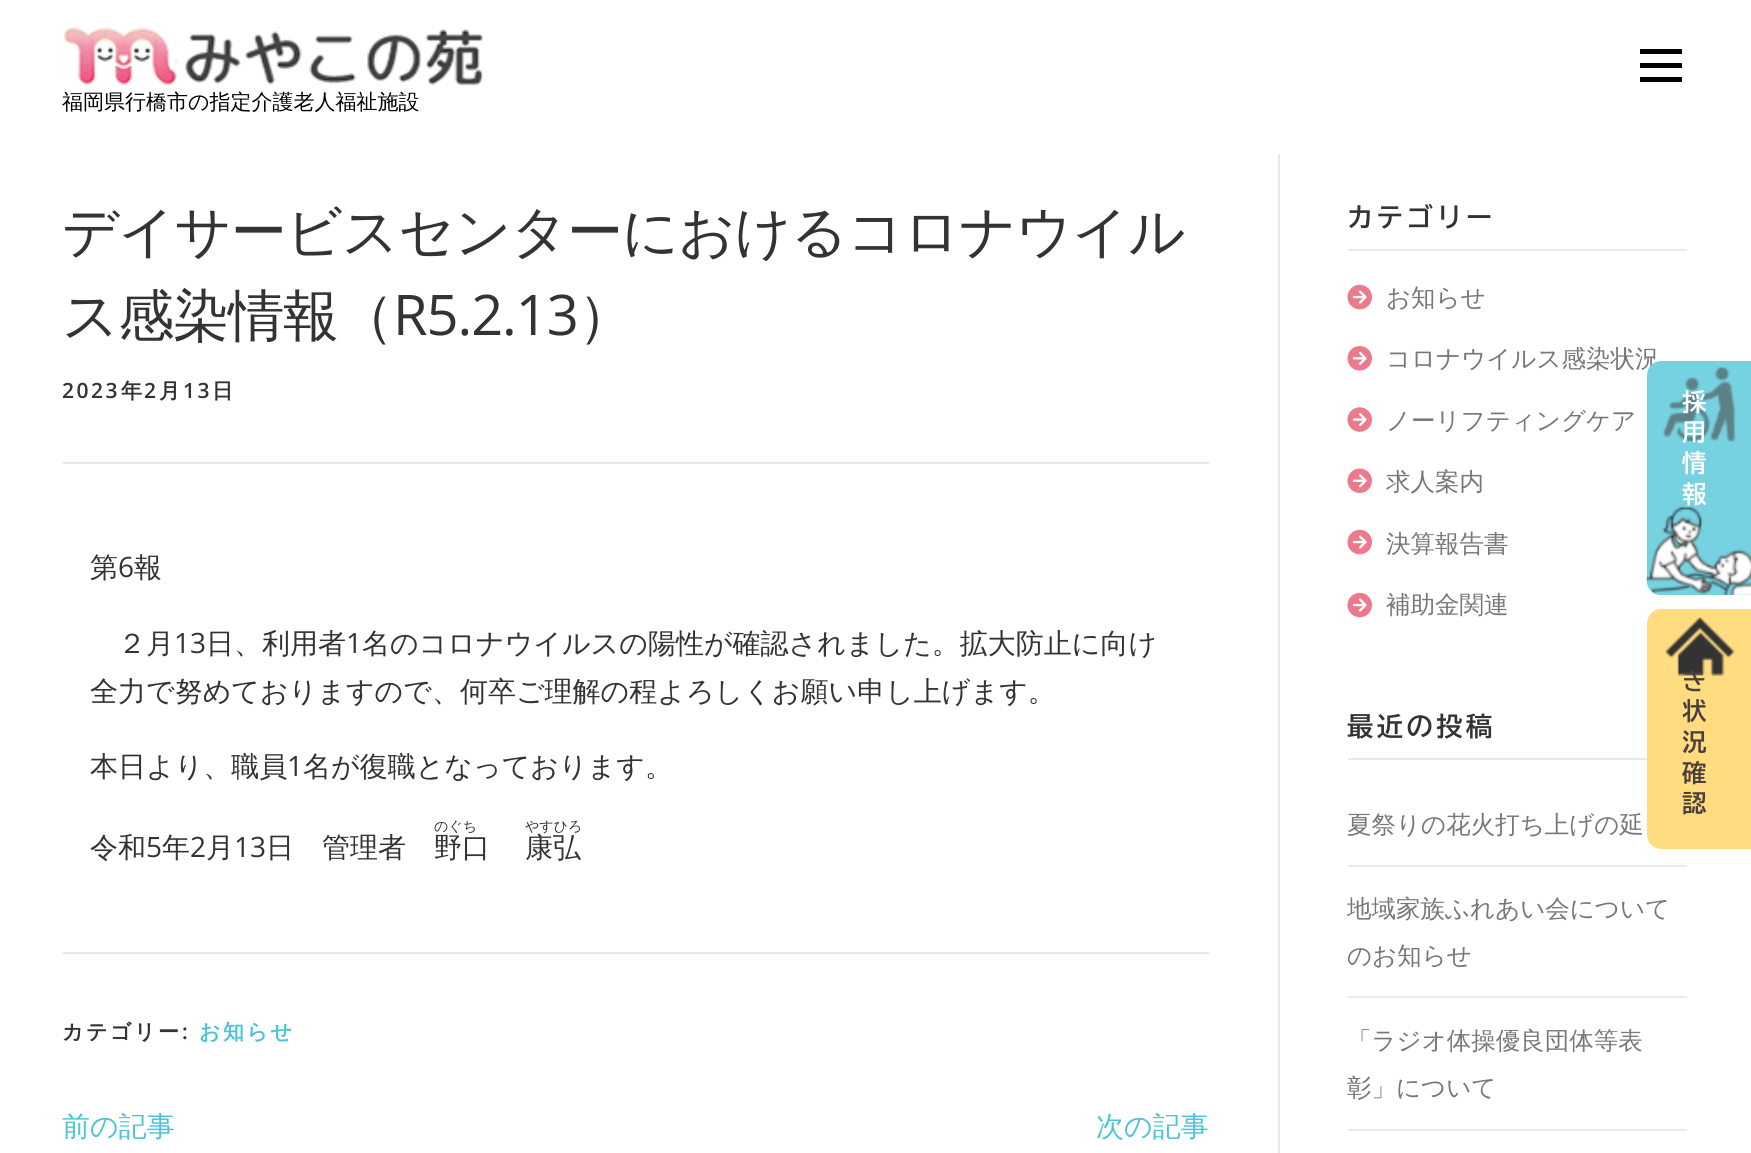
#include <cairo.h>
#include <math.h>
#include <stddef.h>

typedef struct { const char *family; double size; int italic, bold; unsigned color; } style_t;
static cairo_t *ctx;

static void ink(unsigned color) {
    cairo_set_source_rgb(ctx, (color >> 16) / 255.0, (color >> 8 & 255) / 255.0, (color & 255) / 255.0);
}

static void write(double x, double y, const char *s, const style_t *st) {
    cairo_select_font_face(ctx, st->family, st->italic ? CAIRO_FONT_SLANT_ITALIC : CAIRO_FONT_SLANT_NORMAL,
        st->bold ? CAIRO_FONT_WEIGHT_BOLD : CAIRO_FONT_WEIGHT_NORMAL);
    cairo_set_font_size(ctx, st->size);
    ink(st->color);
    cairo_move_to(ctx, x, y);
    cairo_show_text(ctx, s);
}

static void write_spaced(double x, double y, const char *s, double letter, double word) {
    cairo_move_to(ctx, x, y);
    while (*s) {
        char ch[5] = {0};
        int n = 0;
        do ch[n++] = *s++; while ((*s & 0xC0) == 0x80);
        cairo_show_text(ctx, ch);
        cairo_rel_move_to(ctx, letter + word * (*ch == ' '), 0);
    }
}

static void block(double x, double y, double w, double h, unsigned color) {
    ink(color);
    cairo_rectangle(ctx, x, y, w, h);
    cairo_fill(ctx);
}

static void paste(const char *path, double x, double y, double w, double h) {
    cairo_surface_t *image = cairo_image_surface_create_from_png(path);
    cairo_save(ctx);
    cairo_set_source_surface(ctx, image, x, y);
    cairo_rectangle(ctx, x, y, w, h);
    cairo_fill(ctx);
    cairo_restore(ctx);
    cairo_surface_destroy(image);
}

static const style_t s1 = {"WenQuanYi Zen Hei Medium", 21, 0, 0, 0x000000};
static const style_t s2 = {"WenQuanYi Zen Hei Medium", 28, 0, 0, 0x333333};
static const style_t s3 = {"Open Sans", 28, 0, 0, 0x333333};
static const style_t s4 = {"WenQuanYi Zen Hei Medium", 14, 0, 0, 0x333333};
static const style_t s5 = {"WenQuanYi Zen Hei Medium", 28, 0, 0, 0x4cc3d7};
static const style_t s6 = {"WenQuanYi Zen Hei Medium", 24.5, 0, 0, 0x777777};
static const style_t s7 = {"BIZ UDGothic", 24.5, 0, 1, 0xffffff};
static const style_t s8 = {"BIZ UDGothic", 24.5, 0, 1, 0x4a3f3f};

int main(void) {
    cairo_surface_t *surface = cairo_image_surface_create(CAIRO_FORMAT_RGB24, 1751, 1153);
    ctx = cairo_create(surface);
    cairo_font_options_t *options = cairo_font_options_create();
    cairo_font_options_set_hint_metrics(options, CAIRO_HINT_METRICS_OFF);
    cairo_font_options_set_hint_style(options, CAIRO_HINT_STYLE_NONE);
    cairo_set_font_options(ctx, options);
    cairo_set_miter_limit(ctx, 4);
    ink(0xffffff);
    cairo_paint(ctx);
    block(1640, 63, 42, 5, 0x000000);
    block(1640, 49, 42, 5, 0x000000);
    block(1640, 77, 42, 5, 0x000000);
    paste("pic1.png", 63, 26, 420, 60);
    write(62, 109, "福岡県行橋市の指定介護老人福祉施設", &s1);
    block(1278, 154, 2, 999, 0xe9e9e9);
    cairo_set_font_size(ctx, 56);
    ink(0x333333);
    write_spaced(62, 251, "デイサービスセンターにおけるコロナウイル", -1.05, 0);
    write_spaced(62, 335, "ス感染情報（", -1.05, 0);
    cairo_select_font_face(ctx, "Open Sans", CAIRO_FONT_SLANT_NORMAL, CAIRO_FONT_WEIGHT_NORMAL);
    write_spaced(393, 335, "R5.2.13", -1.05, 0);
    cairo_select_font_face(ctx, "WenQuanYi Zen Hei Medium", CAIRO_FONT_SLANT_NORMAL, CAIRO_FONT_WEIGHT_NORMAL);
    write_spaced(578, 335, "）", -1.05, 0);
    block(63, 462, 1146, 2, 0xe9e9e9);
    cairo_select_font_face(ctx, "Open Sans SemiBold", CAIRO_FONT_SLANT_NORMAL, CAIRO_FONT_WEIGHT_NORMAL);
    cairo_set_font_size(ctx, 21);
    ink(0x333333);
    write_spaced(62, 398, "2023", 2.5, 0);
    cairo_select_font_face(ctx, "WenQuanYi Zen Hei", CAIRO_FONT_SLANT_NORMAL, CAIRO_FONT_WEIGHT_BOLD);
    write_spaced(121, 398, "年", 2.5, 0);
    cairo_select_font_face(ctx, "Open Sans SemiBold", CAIRO_FONT_SLANT_NORMAL, CAIRO_FONT_WEIGHT_NORMAL);
    write_spaced(144, 398, "2", 2.5, 0);
    cairo_select_font_face(ctx, "WenQuanYi Zen Hei", CAIRO_FONT_SLANT_NORMAL, CAIRO_FONT_WEIGHT_BOLD);
    write_spaced(159, 398, "月", 2.5, 0);
    cairo_select_font_face(ctx, "Open Sans SemiBold", CAIRO_FONT_SLANT_NORMAL, CAIRO_FONT_WEIGHT_NORMAL);
    write_spaced(183, 398, "13", 2.5, 0);
    cairo_select_font_face(ctx, "WenQuanYi Zen Hei", CAIRO_FONT_SLANT_NORMAL, CAIRO_FONT_WEIGHT_BOLD);
    write_spaced(212, 398, "日", 2.5, 0);
    write(90, 577, "第", &s2);
    write(118, 577, "6", &s3);
    write(134, 577, "報", &s2);
    write(118, 653, "２月", &s2);
    write(174, 653, "13", &s3);
    write(206, 653, "日、利用者", &s2);
    write(346, 653, "1", &s3);
    write(362, 653, "名のコロナウイルスの陽性が確認されました。拡大防止に向け", &s2);
    write(90, 701, "全力で努めておりますので、何卒ご理解の程よろしくお願い申し上げます。", &s2);
    write(90, 776, "本日より、職員", &s2);
    write(287, 776, "1", &s3);
    write(303, 776, "名が復職となっております。", &s2);
    write(90, 857, "令和", &s2);
    write(146, 857, "5", &s3);
    write(162, 857, "年", &s2);
    write(190, 857, "2", &s3);
    write(206, 857, "月", &s2);
    write(234, 857, "13", &s3);
    write(266, 857, "日　管理者", &s2);
    write(434, 831, "のぐち", &s4);
    write(434, 857, "野口", &s2);
    write(525, 831, "やすひろ", &s4);
    write(525, 857, "康弘", &s2);
    block(63, 952, 1146, 2, 0xe9e9e9);
    cairo_select_font_face(ctx, "WenQuanYi Zen Hei", CAIRO_FONT_SLANT_NORMAL, CAIRO_FONT_WEIGHT_BOLD);
    cairo_set_font_size(ctx, 21);
    ink(0x333333);
    write_spaced(62, 1039, "カテゴリー", 2.5, 0);
    cairo_select_font_face(ctx, "Open Sans SemiBold", CAIRO_FONT_SLANT_NORMAL, CAIRO_FONT_WEIGHT_NORMAL);
    write_spaced(182, 1039, ":", 2.5, 0);
    cairo_select_font_face(ctx, "WenQuanYi Zen Hei", CAIRO_FONT_SLANT_NORMAL, CAIRO_FONT_WEIGHT_BOLD);
    ink(0x4cc3d7);
    write_spaced(199, 1039, "お知らせ", 2.5, 0);
    write(62, 1136, "前の記事", &s5);
    write(1096, 1136, "次の記事", &s5);
    block(1348, 249, 339, 2, 0xe9e9e9);
    cairo_select_font_face(ctx, "BIZ UDGothic", CAIRO_FONT_SLANT_NORMAL, CAIRO_FONT_WEIGHT_BOLD);
    cairo_set_font_size(ctx, 26.25);
    ink(0x333333);
    write_spaced(1347, 227, "カテゴリー", 3.5, 0);
    paste("pic2.png", 1347, 284, 25, 26);
    write(1386, 306, "お知らせ", &s6);
    paste("pic3.png", 1347, 346, 25, 25);
    write(1386, 367, "コロナウイルス感染状況", &s6);
    paste("pic4.png", 1347, 407, 25, 25);
    write(1386, 429, "ノーリフティングケア", &s6);
    paste("pic5.png", 1347, 468, 25, 26);
    write(1386, 490, "求人案内", &s6);
    paste("pic2.png", 1347, 529, 25, 26);
    write(1386, 552, "決算報告書", &s6);
    paste("pic2.png", 1347, 592, 25, 26);
    write(1386, 613, "補助金関連", &s6);
    block(1348, 758, 299, 2, 0xe9e9e9);
    cairo_select_font_face(ctx, "BIZ UDGothic", CAIRO_FONT_SLANT_NORMAL, CAIRO_FONT_WEIGHT_BOLD);
    cairo_set_font_size(ctx, 26.25);
    ink(0x333333);
    write_spaced(1347, 736, "最近の投稿", 3.5, 0);
    block(1348, 865, 339, 2, 0xe9e9e9);
    write(1347, 833, "夏祭りの花火打ち上げの延", &s6);
    block(1348, 996, 339, 2, 0xe9e9e9);
    write(1347, 917, "地域家族ふれあい会について", &s6);
    write(1347, 964, "のお知らせ", &s6);
    block(1348, 1129, 339, 2, 0xe9e9e9);
    write(1347, 1049, "「ラジオ体操優良団体等表", &s6);
    write(1347, 1096, "彰」について", &s6);
    ink(0x76d1e0);
    cairo_new_path(ctx);
    cairo_move_to(ctx, 1661, 361);
    cairo_line_to(ctx, 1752, 361);
    cairo_line_to(ctx, 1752, 595);
    cairo_line_to(ctx, 1661, 595);
    cairo_curve_to(ctx, 1653.5, 595, 1647, 588.5, 1647, 581);
    cairo_line_to(ctx, 1647, 375);
    cairo_curve_to(ctx, 1647, 367.5, 1653.5, 361, 1661, 361);
    cairo_close_path(ctx);
    cairo_fill(ctx);
    paste("pic6.png", 1646, 366, 105, 230);
    write(1682, 411, "採", &s7);
    write(1682, 441, "用", &s7);
    write(1682, 472, "情", &s7);
    write(1682, 503, "報", &s7);
    ink(0xffdc7f);
    cairo_new_path(ctx);
    cairo_move_to(ctx, 1661, 609);
    cairo_line_to(ctx, 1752, 609);
    cairo_line_to(ctx, 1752, 849);
    cairo_line_to(ctx, 1661, 849);
    cairo_curve_to(ctx, 1653.5, 849, 1647, 842.5, 1647, 835);
    cairo_line_to(ctx, 1647, 623);
    cairo_curve_to(ctx, 1647, 615.5, 1653.5, 609, 1661, 609);
    cairo_close_path(ctx);
    cairo_fill(ctx);
    paste("pic7.png", 1665, 617, 70, 59);
    write(1682, 690, "き", &s8);
    write(1682, 720, "状", &s8);
    write(1682, 751, "況", &s8);
    write(1682, 782, "確", &s8);
    write(1682, 812, "認", &s8);
    cairo_surface_write_to_png(surface, "screenshot.png");
    cairo_font_options_destroy(options);
    cairo_destroy(ctx);
    cairo_surface_destroy(surface);
    return 0;
}
